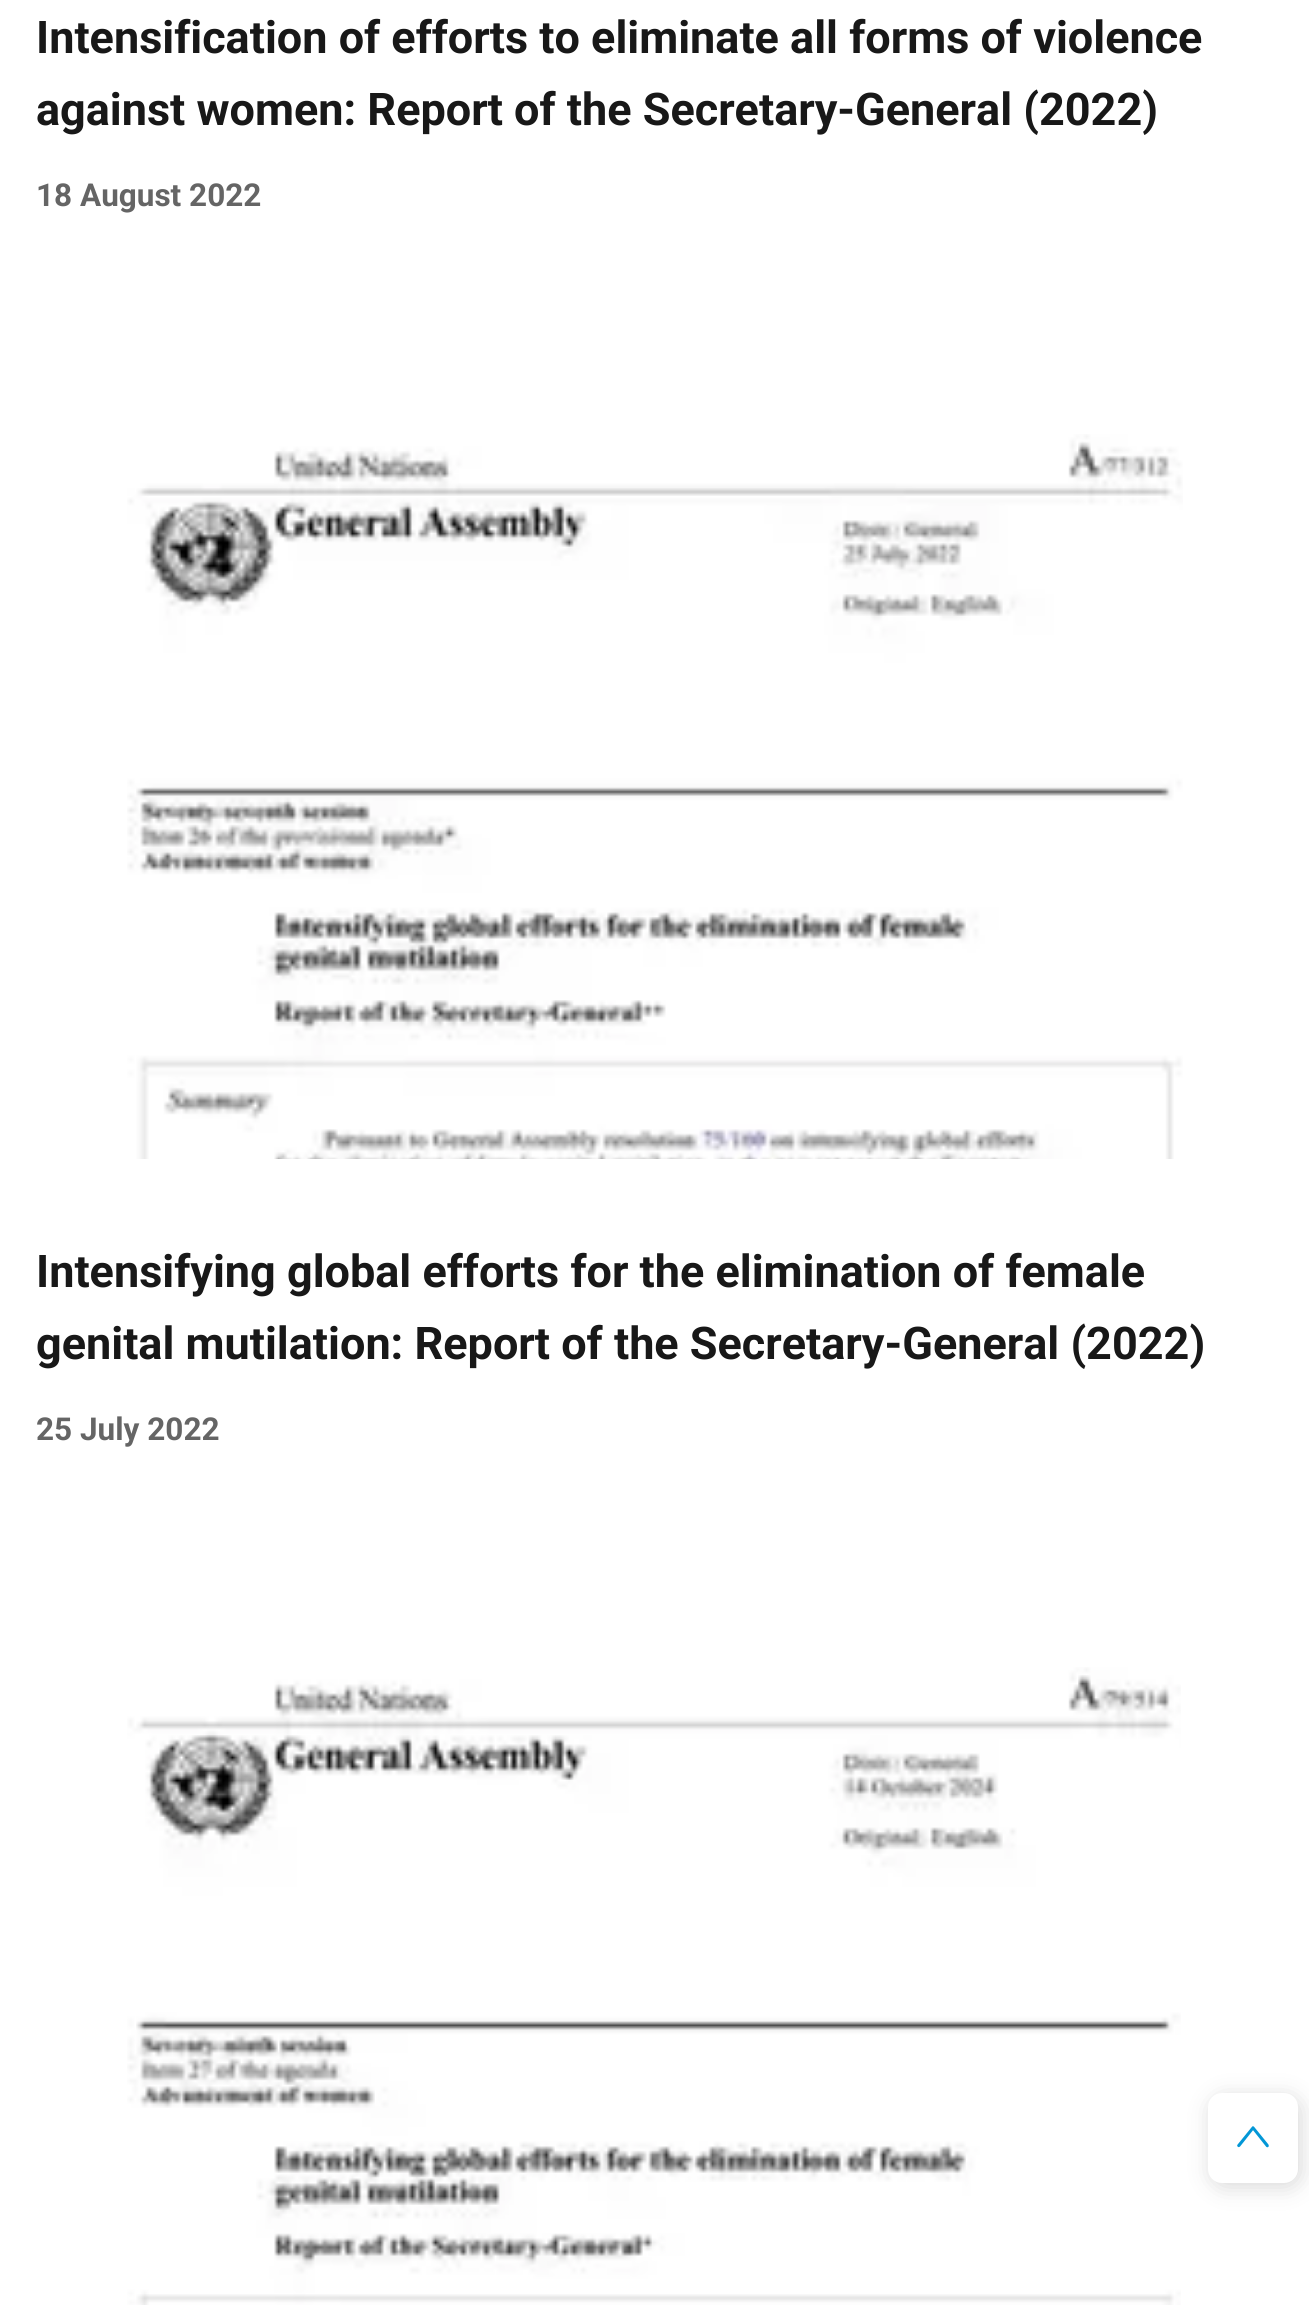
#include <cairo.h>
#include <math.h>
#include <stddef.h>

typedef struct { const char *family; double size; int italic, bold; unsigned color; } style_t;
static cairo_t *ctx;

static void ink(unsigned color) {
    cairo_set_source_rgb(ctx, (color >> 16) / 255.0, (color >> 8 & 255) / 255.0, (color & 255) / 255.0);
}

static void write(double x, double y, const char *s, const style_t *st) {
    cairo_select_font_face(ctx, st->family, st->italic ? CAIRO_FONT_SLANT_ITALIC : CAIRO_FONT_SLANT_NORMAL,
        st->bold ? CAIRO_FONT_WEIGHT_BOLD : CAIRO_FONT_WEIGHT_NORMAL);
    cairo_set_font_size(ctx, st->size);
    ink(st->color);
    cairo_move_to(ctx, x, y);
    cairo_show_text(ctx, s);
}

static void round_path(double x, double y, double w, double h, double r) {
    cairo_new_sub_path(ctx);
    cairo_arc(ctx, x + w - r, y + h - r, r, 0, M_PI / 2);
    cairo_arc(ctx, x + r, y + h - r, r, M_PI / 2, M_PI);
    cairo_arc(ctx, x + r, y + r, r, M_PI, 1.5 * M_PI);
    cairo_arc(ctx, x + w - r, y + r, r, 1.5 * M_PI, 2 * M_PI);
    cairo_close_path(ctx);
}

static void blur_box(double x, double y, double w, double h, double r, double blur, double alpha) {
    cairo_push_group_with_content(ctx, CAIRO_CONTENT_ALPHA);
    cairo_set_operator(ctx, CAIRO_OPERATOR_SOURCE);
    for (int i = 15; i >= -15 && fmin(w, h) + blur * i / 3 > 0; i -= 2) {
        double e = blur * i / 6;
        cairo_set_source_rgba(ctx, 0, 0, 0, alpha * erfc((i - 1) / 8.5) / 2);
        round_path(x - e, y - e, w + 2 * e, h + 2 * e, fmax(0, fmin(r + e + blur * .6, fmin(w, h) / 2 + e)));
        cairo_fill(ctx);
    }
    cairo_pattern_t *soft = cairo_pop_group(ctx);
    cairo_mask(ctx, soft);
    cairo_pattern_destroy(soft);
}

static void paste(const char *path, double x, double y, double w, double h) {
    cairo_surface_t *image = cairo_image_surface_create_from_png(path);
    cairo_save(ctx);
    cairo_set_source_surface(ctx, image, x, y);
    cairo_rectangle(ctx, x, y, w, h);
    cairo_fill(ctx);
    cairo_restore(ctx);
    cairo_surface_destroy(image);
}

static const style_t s1 = {"Roboto", 45, 0, 1, 0x181818};
static const style_t s2 = {"Roboto", 31.5, 0, 1, 0x656565};

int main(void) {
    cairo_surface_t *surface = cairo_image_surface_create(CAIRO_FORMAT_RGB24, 1309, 2305);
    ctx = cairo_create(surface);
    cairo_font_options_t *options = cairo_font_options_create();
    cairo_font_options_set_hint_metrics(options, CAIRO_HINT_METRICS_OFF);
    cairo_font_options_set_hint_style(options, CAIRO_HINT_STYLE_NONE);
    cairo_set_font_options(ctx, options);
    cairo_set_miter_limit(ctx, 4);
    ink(0xffffff);
    cairo_paint(ctx);
    write(36, 53, "Intensification of efforts to eliminate all forms of violence", &s1);
    write(36, 125, "against women: Report of the Secretary-General (2022)", &s1);
    write(36, 206, "18 August 2022", &s2);
    paste("pic1.png", 127, 434, 1056, 725);
    write(36, 1287, "Intensifying global efforts for the elimination of female", &s1);
    write(36, 1359, "genital mutilation: Report of the Secretary-General (2022)", &s1);
    write(36, 1440, "25 July 2022", &s2);
    paste("pic2.png", 127, 1667, 1054, 638);
    ink(0x656565);
    blur_box(1211, 2097, 90, 90, 14, 11, 0.25);
    ink(0xffffff);
    round_path(1209, 2094, 88, 88, 13);
    cairo_fill_preserve(ctx);
    cairo_stroke(ctx);
    paste("pic3.png", 1237, 2126, 32, 22);
    cairo_surface_write_to_png(surface, "screenshot.png");
    cairo_font_options_destroy(options);
    cairo_destroy(ctx);
    cairo_surface_destroy(surface);
    return 0;
}
